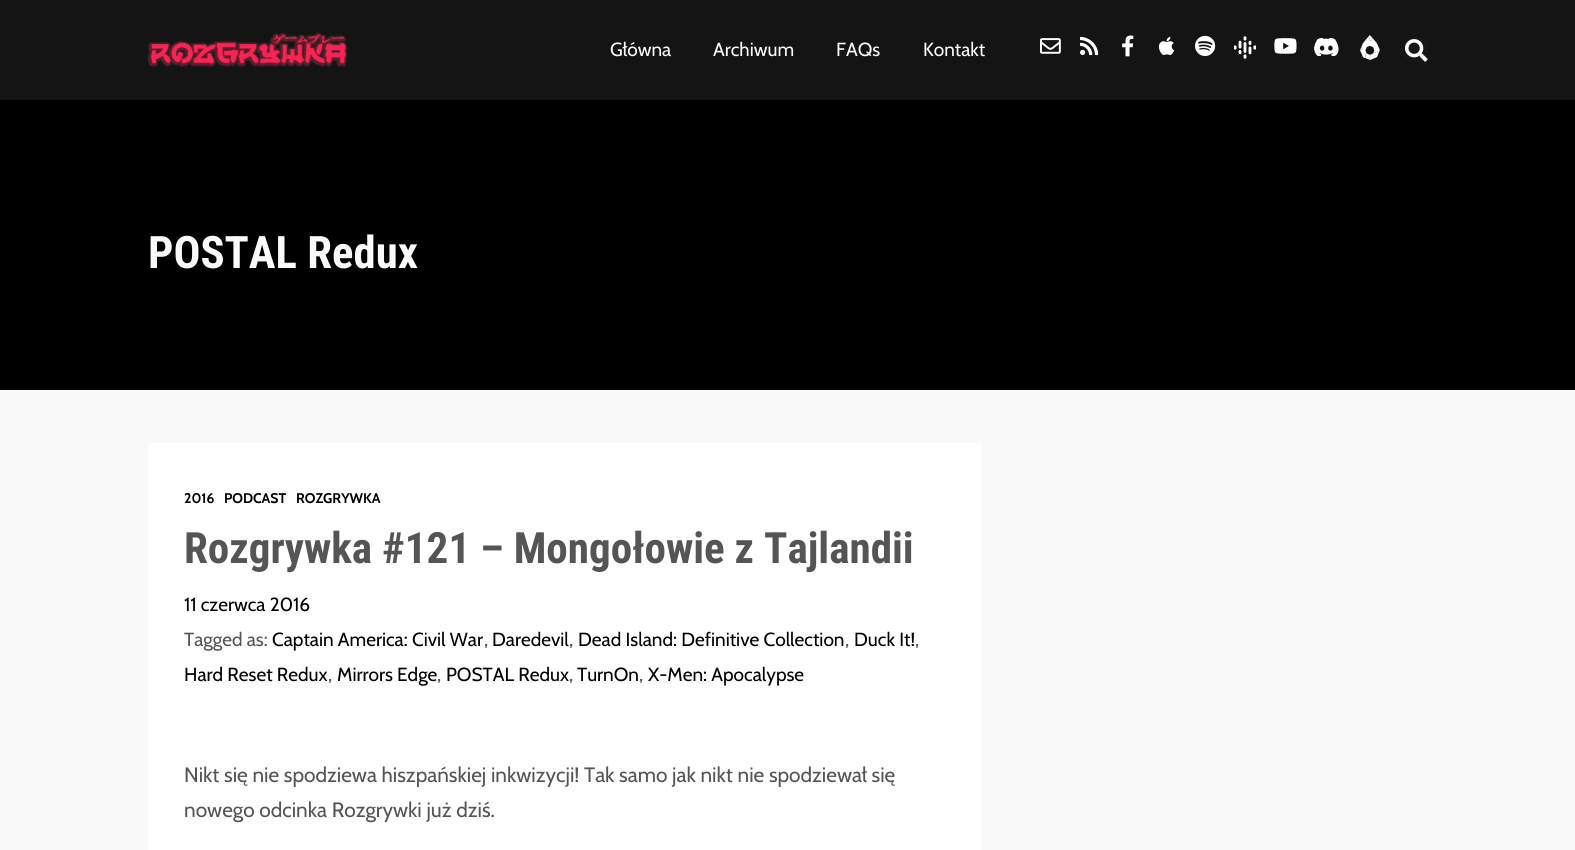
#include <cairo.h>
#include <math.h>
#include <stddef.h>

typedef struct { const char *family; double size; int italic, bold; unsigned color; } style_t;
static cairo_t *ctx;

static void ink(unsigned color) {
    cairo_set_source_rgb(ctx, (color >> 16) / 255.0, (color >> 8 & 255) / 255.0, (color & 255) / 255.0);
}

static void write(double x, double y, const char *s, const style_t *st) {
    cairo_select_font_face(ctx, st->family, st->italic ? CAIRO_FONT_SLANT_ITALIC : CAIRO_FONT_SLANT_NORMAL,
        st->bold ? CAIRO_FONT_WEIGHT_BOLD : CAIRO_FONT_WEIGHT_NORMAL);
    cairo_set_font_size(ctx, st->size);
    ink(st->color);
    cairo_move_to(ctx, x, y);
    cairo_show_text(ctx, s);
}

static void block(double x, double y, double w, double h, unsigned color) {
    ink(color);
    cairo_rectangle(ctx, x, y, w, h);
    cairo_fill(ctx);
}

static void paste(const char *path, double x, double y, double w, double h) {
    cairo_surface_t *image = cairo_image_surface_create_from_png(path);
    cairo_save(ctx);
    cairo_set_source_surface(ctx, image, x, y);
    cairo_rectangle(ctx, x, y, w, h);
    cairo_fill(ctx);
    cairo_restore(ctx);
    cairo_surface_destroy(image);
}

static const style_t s1 = {"Cabin", 19, 0, 0, 0xfafafa};
static const style_t s2 = {"Roboto Condensed", 44.75, 0, 1, 0xfafafa};
static const style_t s3 = {"Cabin", 14, 0, 1, 0x000000};
static const style_t s4 = {"Roboto Condensed", 43.1, 0, 1, 0x555555};
static const style_t s5 = {"Cabin", 19, 0, 0, 0x000000};
static const style_t s6 = {"Cabin", 19, 0, 0, 0x555555};
static const style_t s7 = {"Cabin", 20.8, 0, 0, 0x555555};

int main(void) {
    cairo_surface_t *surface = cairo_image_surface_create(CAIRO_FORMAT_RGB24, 1575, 850);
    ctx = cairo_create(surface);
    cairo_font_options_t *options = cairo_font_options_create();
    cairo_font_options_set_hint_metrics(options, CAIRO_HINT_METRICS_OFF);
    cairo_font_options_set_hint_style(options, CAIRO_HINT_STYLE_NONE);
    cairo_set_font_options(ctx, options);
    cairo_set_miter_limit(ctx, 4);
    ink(0x000000);
    cairo_paint(ctx);
    block(0, 0, 1575, 100, 0x141414);
    paste("pic1.png", 147, 32, 201, 36);
    write(610, 56, "Główna", &s1);
    write(713, 56, "Archiwum", &s1);
    write(836, 56, "FAQs", &s1);
    write(923, 56, "Kontakt", &s1);
    paste("pic2.png", 1040, 38, 21, 16);
    paste("pic3.png", 1080, 36, 19, 20);
    paste("pic4.png", 1122, 35, 12, 22);
    paste("pic5.png", 1158, 36, 17, 19);
    paste("pic6.png", 1195, 35, 21, 21);
    paste("pic7.png", 1234, 36, 22, 23);
    paste("pic8.png", 1274, 38, 23, 16);
    paste("pic9.png", 1314, 38, 25, 18);
    paste("pic10.png", 1360, 35, 20, 25);
    block(1405, 39, 23, 22, 0x171717);
    paste("pic11.png", 1405, 39, 23, 23);
    write(148, 268, "POSTAL Redux", &s2);
    block(0, 390, 1575, 460, 0xf9f9f9);
    block(148, 443, 833, 407, 0xffffff);
    write(184, 503, "2016", &s3);
    write(224, 503, "PODCAST", &s3);
    write(296, 503, "ROZGRYWKA", &s3);
    write(184, 563, "Rozgrywka #121 – Mongołowie z Tajlandii", &s4);
    write(184, 611, "11 czerwca 2016", &s5);
    write(184, 646, "Tagged as:", &s6);
    write(272, 646, "Captain America: Civil War", &s5);
    write(484, 646, ",", &s6);
    write(492, 646, "Daredevil", &s5);
    write(569, 646, ",", &s6);
    write(578, 646, "Dead Island: Definitive Collection", &s5);
    write(845, 646, ",", &s6);
    write(854, 646, "Duck It!", &s5);
    write(915, 646, ",", &s6);
    write(184, 681, "Hard Reset Redux", &s5);
    write(328, 681, ",", &s6);
    write(337, 681, "Mirrors Edge", &s5);
    write(437, 681, ",", &s6);
    write(446, 681, "POSTAL Redux", &s5);
    write(569, 681, ",", &s6);
    write(577, 681, "TurnOn", &s5);
    write(639, 681, ",", &s6);
    write(648, 681, "X-Men: Apocalypse", &s5);
    write(184, 782, "Nikt się nie spodziewa hiszpańskiej inkwizycji! Tak samo jak nikt nie spodziewał się", &s7);
    write(184, 817, "nowego odcinka Rozgrywki już dziś.", &s7);
    cairo_surface_write_to_png(surface, "screenshot.png");
    cairo_font_options_destroy(options);
    cairo_destroy(ctx);
    cairo_surface_destroy(surface);
    return 0;
}
